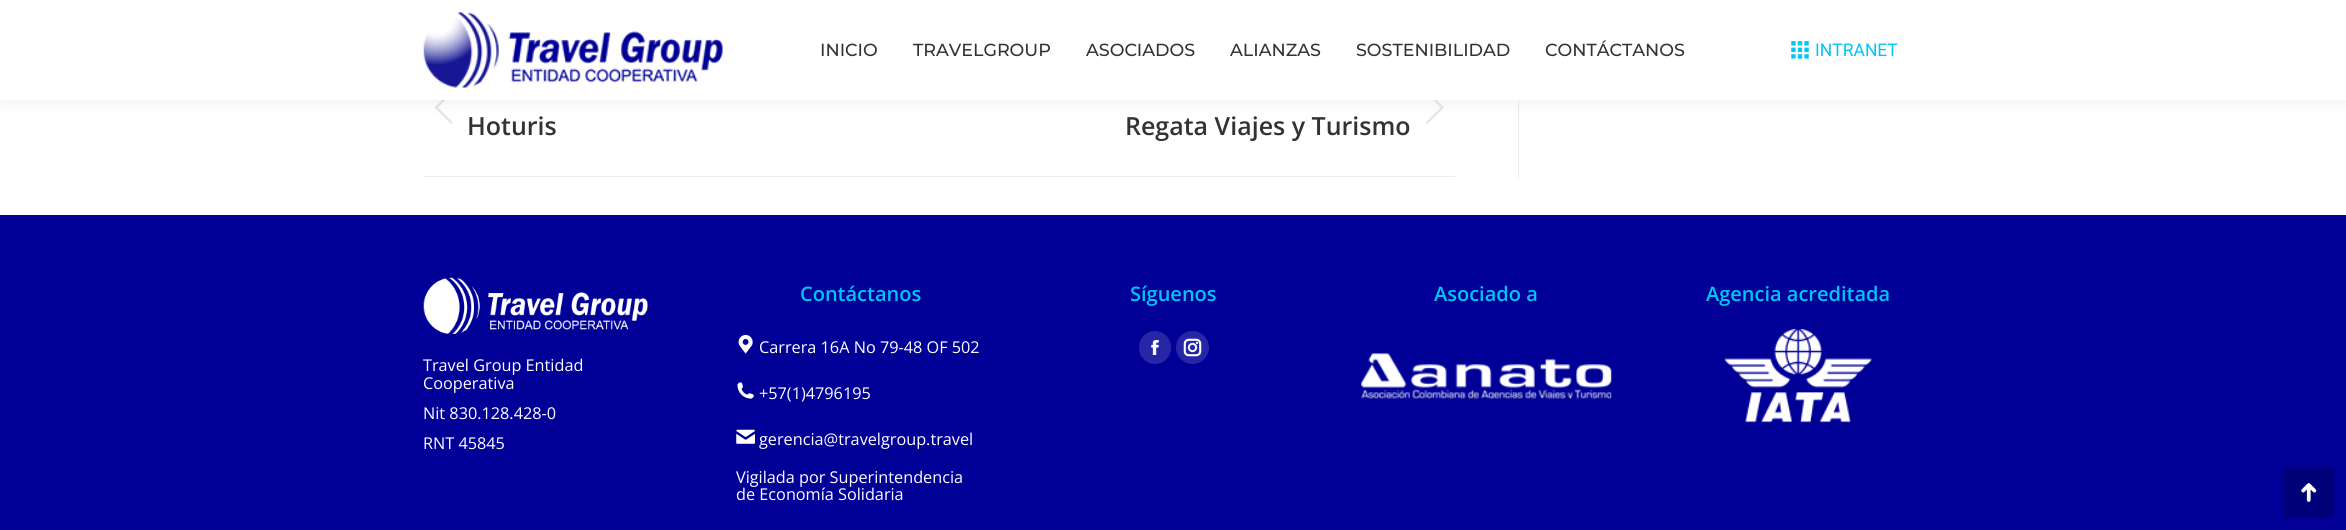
#include <cairo.h>
#include <math.h>
#include <stddef.h>

typedef struct { const char *family; double size; int italic, bold; unsigned color; } style_t;
static cairo_t *ctx;

static void ink(unsigned color) {
    cairo_set_source_rgb(ctx, (color >> 16) / 255.0, (color >> 8 & 255) / 255.0, (color & 255) / 255.0);
}

static void write(double x, double y, const char *s, const style_t *st) {
    cairo_select_font_face(ctx, st->family, st->italic ? CAIRO_FONT_SLANT_ITALIC : CAIRO_FONT_SLANT_NORMAL,
        st->bold ? CAIRO_FONT_WEIGHT_BOLD : CAIRO_FONT_WEIGHT_NORMAL);
    cairo_set_font_size(ctx, st->size);
    ink(st->color);
    cairo_move_to(ctx, x, y);
    cairo_show_text(ctx, s);
}

static void block(double x, double y, double w, double h, unsigned color) {
    ink(color);
    cairo_rectangle(ctx, x, y, w, h);
    cairo_fill(ctx);
}

static void round_path(double x, double y, double w, double h, double r) {
    cairo_new_sub_path(ctx);
    cairo_arc(ctx, x + w - r, y + h - r, r, 0, M_PI / 2);
    cairo_arc(ctx, x + r, y + h - r, r, M_PI / 2, M_PI);
    cairo_arc(ctx, x + r, y + r, r, M_PI, 1.5 * M_PI);
    cairo_arc(ctx, x + w - r, y + r, r, 1.5 * M_PI, 2 * M_PI);
    cairo_close_path(ctx);
}

static void blur_box(double x, double y, double w, double h, double r, double blur, double alpha) {
    cairo_push_group_with_content(ctx, CAIRO_CONTENT_ALPHA);
    cairo_set_operator(ctx, CAIRO_OPERATOR_SOURCE);
    for (int i = 15; i >= -15 && fmin(w, h) + blur * i / 3 > 0; i -= 2) {
        double e = blur * i / 6;
        cairo_set_source_rgba(ctx, 0, 0, 0, alpha * erfc((i - 1) / 8.5) / 2);
        round_path(x - e, y - e, w + 2 * e, h + 2 * e, fmax(0, fmin(r + e + blur * .6, fmin(w, h) / 2 + e)));
        cairo_fill(ctx);
    }
    cairo_pattern_t *soft = cairo_pop_group(ctx);
    cairo_mask(ctx, soft);
    cairo_pattern_destroy(soft);
}

static void paste(const char *path, double x, double y, double w, double h) {
    cairo_surface_t *image = cairo_image_surface_create_from_png(path);
    cairo_save(ctx);
    cairo_set_source_surface(ctx, image, x, y);
    cairo_rectangle(ctx, x, y, w, h);
    cairo_fill(ctx);
    cairo_restore(ctx);
    cairo_surface_destroy(image);
}

static const style_t s1 = {"Montserrat Medium", 17.5, 0, 0, 0x333333};
static const style_t s2 = {"Roboto", 17.5, 0, 0, 0x01c5f5};
static const style_t s3 = {"Open Sans SemiBold", 25, 0, 0, 0x333333};
static const style_t s4 = {"Open Sans SemiBold", 20, 0, 0, 0x01c5f5};
static const style_t s5 = {"Open Sans", 16.25, 0, 0, 0xffffff};

int main(void) {
    cairo_surface_t *surface = cairo_image_surface_create(CAIRO_FORMAT_RGB24, 2346, 530);
    ctx = cairo_create(surface);
    cairo_font_options_t *options = cairo_font_options_create();
    cairo_font_options_set_hint_metrics(options, CAIRO_HINT_METRICS_OFF);
    cairo_font_options_set_hint_style(options, CAIRO_HINT_STYLE_NONE);
    cairo_set_font_options(ctx, options);
    cairo_set_miter_limit(ctx, 4);
    ink(0xffffff);
    cairo_paint(ctx);
    paste("pic3.png", 435, 100, 18, 24);
    paste("pic4.png", 1426, 100, 18, 24);
    block(1518, 100, 1, 78, 0xebebeb);
    ink(0x000000);
    blur_box(-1, -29, 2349, 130, 0, 9.5, 0.07);
    block(0, 0, 2346, 100, 0xffffff);
    paste("pic1.png", 423, 12, 300, 76);
    write(820, 56, "INICIO", &s1);
    write(913, 56, "TRAVELGROUP", &s1);
    write(1086, 56, "ASOCIADOS", &s1);
    write(1230, 56, "ALIANZAS", &s1);
    write(1356, 56, "SOSTENIBILIDAD", &s1);
    write(1545, 56, "CONTÁCTANOS", &s1);
    paste("pic2.png", 1791, 41, 18, 18);
    write(1815, 56, "INTRANET", &s2);
    block(424, 176, 1031, 1, 0xebebeb);
    write(467, 135, "Hoturis", &s3);
    write(1125, 135, "Regata Viajes y Turismo", &s3);
    block(0, 215, 2346, 315, 0x000097);
    write(800, 301, "Contáctanos", &s4);
    paste("pic5.png", 738, 334, 15, 20);
    write(759, 353, "Carrera 16A No 79-48 OF 502", &s5);
    paste("pic6.png", 737, 382, 17, 17);
    write(759, 399, "+57(1)4796195", &s5);
    paste("pic7.png", 736, 429, 19, 15);
    write(759, 445, "gerencia@travelgroup.travel", &s5);
    write(736, 483, "Vigilada por Superintendencia", &s5);
    write(736, 500, "de Economía Solidaria", &s5);
    write(1130, 301, "Síguenos", &s4);
    ink(0x2626a7);
    round_path(1139, 331, 32, 33, 16);
    cairo_fill(ctx);
    paste("pic8.png", 1151, 340, 8, 15);
    cairo_arc(ctx, 1192.5, 347.5, 16.5, 0, 2 * M_PI);
    cairo_fill(ctx);
    paste("pic9.png", 1183, 338, 19, 19);
    write(1434, 301, "Asociado a", &s4);
    paste("pic10.png", 1361, 353, 251, 46);
    write(1706, 301, "Agencia acreditada", &s4);
    paste("pic11.png", 1724, 329, 148, 94);
    paste("pic12.png", 423, 277, 225, 57);
    write(423, 371, "Travel Group Entidad", &s5);
    write(423, 389, "Cooperativa", &s5);
    write(423, 419, "Nit 830.128.428-0", &s5);
    write(423, 449, "RNT 45845", &s5);
    block(2284, 468, 50, 50, 0x000079);
    paste("pic13.png", 2301, 483, 16, 19);
    cairo_surface_write_to_png(surface, "screenshot.png");
    cairo_font_options_destroy(options);
    cairo_destroy(ctx);
    cairo_surface_destroy(surface);
    return 0;
}
